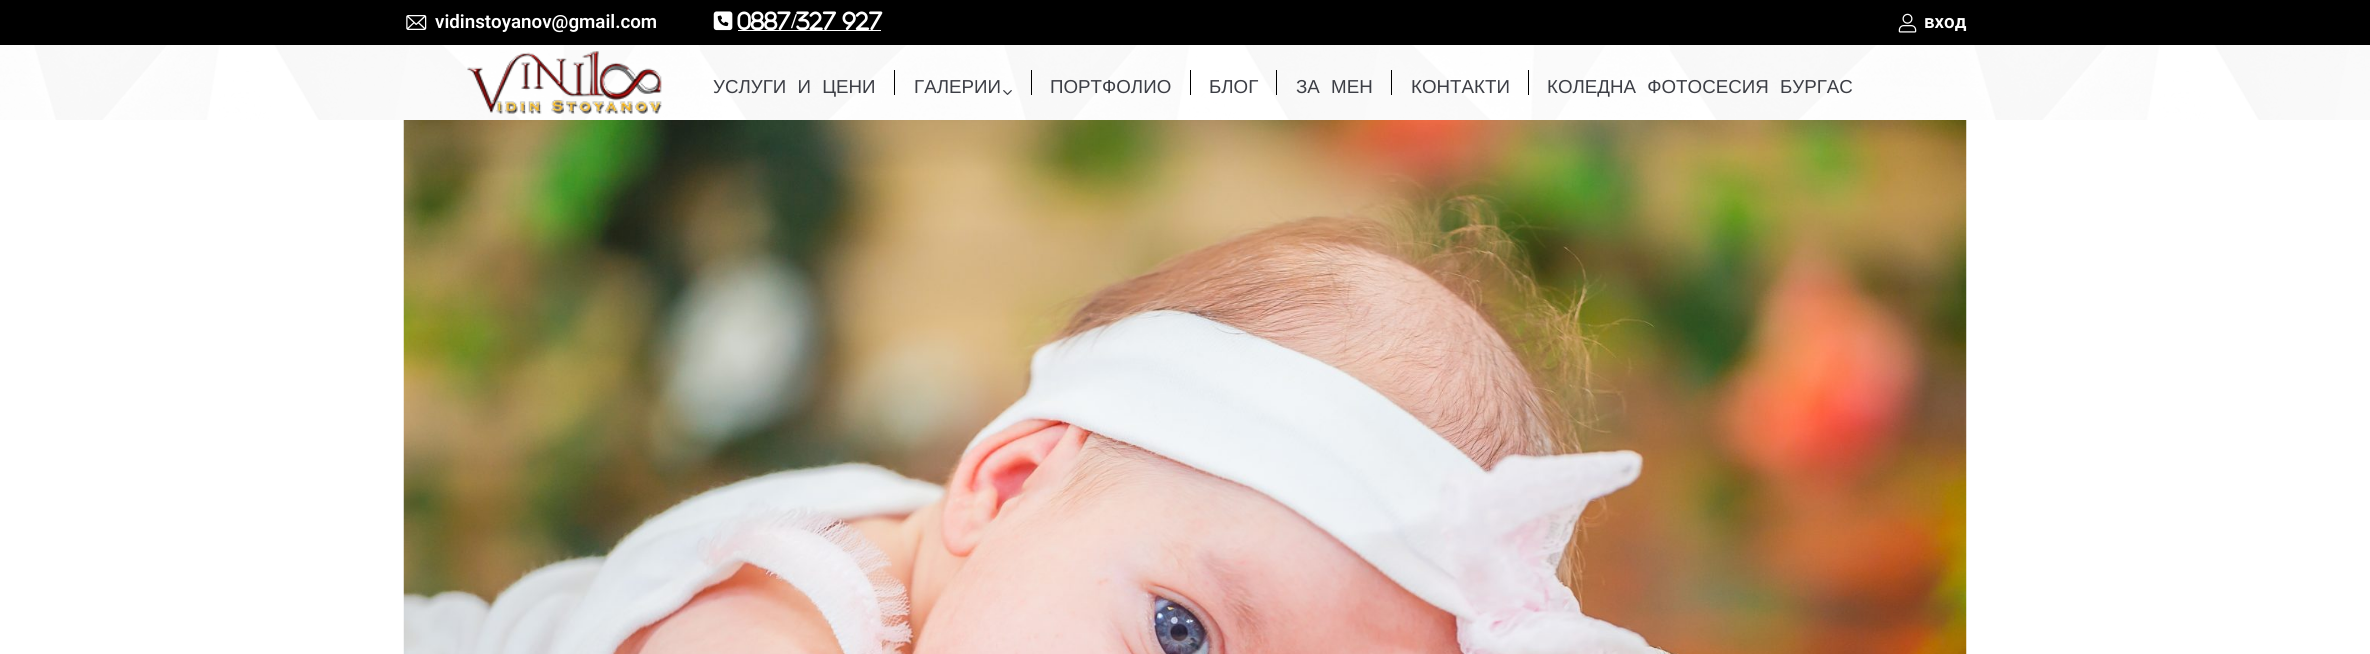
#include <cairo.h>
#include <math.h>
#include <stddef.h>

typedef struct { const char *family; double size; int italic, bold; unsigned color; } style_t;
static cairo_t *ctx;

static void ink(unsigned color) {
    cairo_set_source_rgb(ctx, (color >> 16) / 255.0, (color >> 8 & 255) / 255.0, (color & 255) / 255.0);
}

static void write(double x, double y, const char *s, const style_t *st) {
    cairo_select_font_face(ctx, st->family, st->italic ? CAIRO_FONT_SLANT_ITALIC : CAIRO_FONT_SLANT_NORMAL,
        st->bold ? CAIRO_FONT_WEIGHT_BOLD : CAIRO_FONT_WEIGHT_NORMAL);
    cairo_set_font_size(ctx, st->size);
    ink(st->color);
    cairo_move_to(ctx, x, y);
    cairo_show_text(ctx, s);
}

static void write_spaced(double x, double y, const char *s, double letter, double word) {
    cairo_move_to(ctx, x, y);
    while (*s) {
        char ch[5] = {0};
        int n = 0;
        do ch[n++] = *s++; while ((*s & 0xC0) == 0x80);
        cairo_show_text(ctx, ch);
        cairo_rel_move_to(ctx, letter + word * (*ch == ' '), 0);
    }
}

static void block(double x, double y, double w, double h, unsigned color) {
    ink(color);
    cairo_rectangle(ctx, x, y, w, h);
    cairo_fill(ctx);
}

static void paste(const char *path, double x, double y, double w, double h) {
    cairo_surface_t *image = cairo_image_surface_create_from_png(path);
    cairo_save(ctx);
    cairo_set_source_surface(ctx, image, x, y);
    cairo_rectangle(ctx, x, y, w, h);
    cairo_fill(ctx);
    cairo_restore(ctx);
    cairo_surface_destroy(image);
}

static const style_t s1 = {"Roboto SemiBold", 18.75, 0, 0, 0xffffff};
static const style_t s2 = {"Liberation Serif", 21, 0, 1, 0xffffff};
static const style_t s3 = {"Liberation Sans", 18.75, 0, 0, 0x3c3e45};

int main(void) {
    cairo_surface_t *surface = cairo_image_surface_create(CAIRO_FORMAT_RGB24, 2370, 654);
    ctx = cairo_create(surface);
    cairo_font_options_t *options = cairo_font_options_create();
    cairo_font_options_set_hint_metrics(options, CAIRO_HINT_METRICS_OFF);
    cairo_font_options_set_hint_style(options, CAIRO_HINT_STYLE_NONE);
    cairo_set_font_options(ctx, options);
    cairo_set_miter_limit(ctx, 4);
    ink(0xffffff);
    cairo_paint(ctx);
    paste("pic1.png", 0, 45, 2370, 75);
    block(0, 0, 2370, 45, 0x000000);
    paste("pic2.png", 406, 15, 21, 15);
    write(435, 28, "vidinstoyanov@gmail.com", &s1);
    paste("pic3.png", 713, 11, 20, 20);
    paste("pic4.png", 737, 11, 54, 19);
    paste("pic5.png", 796, 11, 41, 19);
    write(791, 28, "/", &s2);
    block(738, 30, 143, 1, 0xffffff);
    paste("pic6.png", 842, 11, 41, 19);
    paste("pic7.png", 1898, 13, 19, 20);
    write(1924, 28, "вход", &s1);
    paste("pic8.png", 467, 51, 195, 63);
    cairo_select_font_face(ctx, "Liberation Sans", CAIRO_FONT_SLANT_NORMAL, CAIRO_FONT_WEIGHT_NORMAL);
    ink(0x3c3e45);
    write_spaced(713, 93, "УСЛУГИ И ЦЕНИ", 0, 6);
    block(894, 70, 1, 25, 0x000000);
    write(914, 93, "ГАЛЕРИИ", &s3);
    paste("pic9.png", 1003, 90, 9, 5);
    block(1031, 70, 1, 25, 0x000000);
    write(1050, 93, "ПОРТФОЛИО", &s3);
    block(1190, 70, 1, 25, 0x000000);
    write(1209, 93, "БЛОГ", &s3);
    block(1276, 70, 1, 25, 0x000000);
    ink(0x3c3e45);
    write_spaced(1296, 93, "ЗА МЕН", 0, 6);
    block(1391, 70, 1, 25, 0x000000);
    write(1411, 93, "КОНТАКТИ", &s3);
    block(1528, 70, 1, 25, 0x000000);
    ink(0x3c3e45);
    write_spaced(1547, 93, "КОЛЕДНА ФОТОСЕСИЯ БУРГАС", 0, 6);
    paste("pic10.png", 403, 120, 1564, 534);
    cairo_surface_write_to_png(surface, "screenshot.png");
    cairo_font_options_destroy(options);
    cairo_destroy(ctx);
    cairo_surface_destroy(surface);
    return 0;
}
